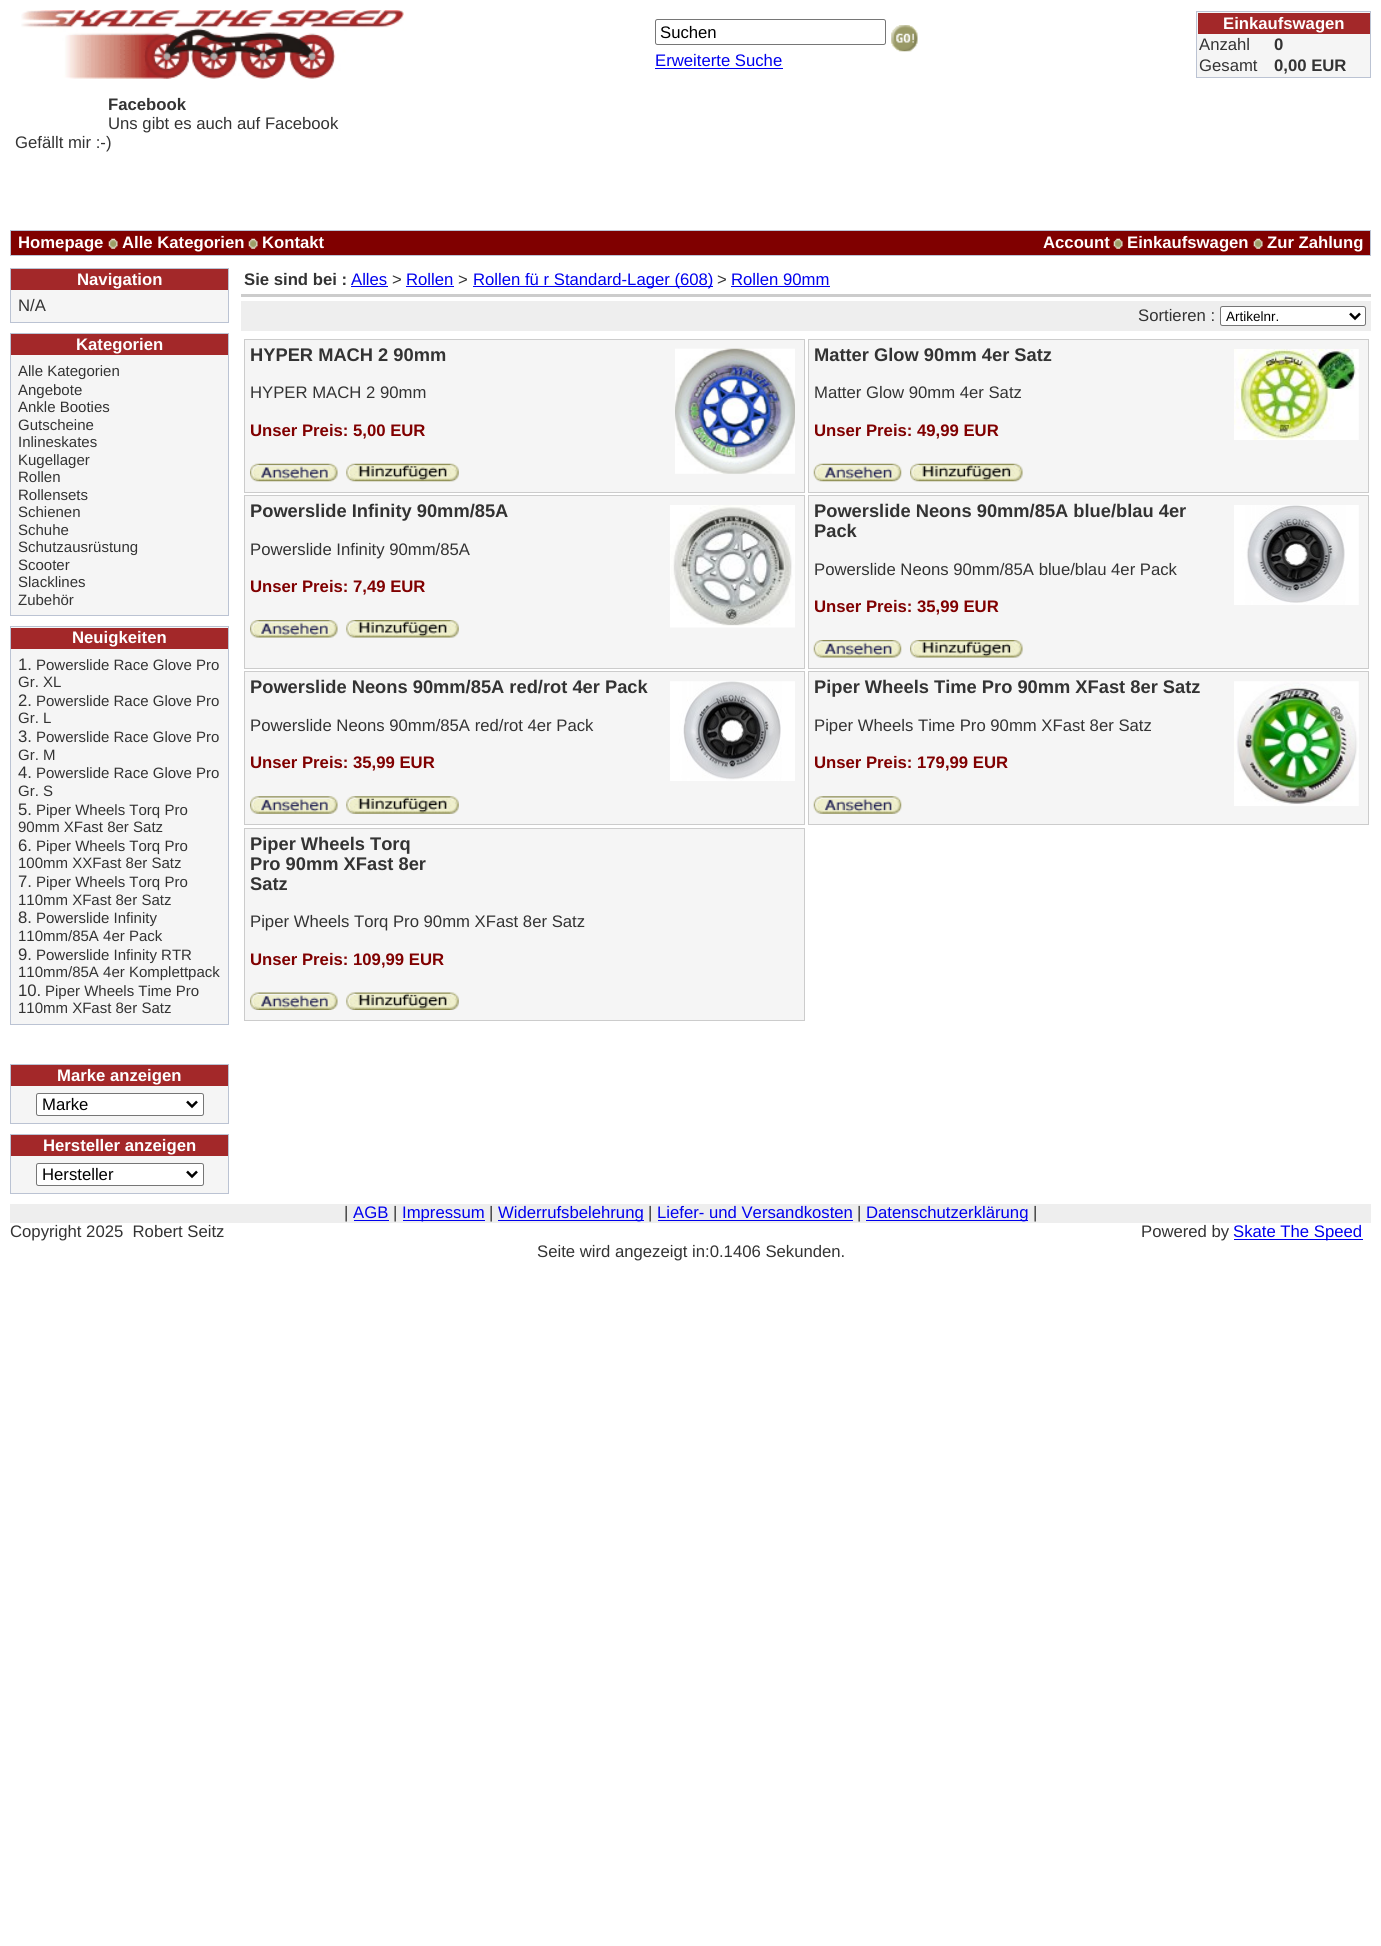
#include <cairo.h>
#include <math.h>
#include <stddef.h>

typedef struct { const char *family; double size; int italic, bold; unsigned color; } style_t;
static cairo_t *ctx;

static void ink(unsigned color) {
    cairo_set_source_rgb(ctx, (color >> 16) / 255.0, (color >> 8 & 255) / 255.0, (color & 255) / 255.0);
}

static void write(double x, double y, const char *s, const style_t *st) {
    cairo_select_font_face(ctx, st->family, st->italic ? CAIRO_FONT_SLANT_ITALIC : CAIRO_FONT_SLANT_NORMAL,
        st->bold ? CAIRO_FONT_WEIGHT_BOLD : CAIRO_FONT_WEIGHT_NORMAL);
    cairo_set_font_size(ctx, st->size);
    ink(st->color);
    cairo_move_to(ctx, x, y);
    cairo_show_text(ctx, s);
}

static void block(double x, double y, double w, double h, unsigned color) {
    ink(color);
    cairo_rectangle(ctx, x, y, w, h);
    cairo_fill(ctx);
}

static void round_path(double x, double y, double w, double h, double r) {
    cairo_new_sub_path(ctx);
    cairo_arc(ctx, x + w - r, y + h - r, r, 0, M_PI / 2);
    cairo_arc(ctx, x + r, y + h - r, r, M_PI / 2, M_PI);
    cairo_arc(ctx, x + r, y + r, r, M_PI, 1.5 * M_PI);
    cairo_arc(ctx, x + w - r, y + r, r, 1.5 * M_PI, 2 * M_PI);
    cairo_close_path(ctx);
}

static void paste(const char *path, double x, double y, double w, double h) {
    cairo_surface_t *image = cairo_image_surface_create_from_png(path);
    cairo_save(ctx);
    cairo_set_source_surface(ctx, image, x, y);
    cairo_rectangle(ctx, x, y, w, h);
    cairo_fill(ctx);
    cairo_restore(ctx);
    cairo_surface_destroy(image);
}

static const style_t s1 = {"Liberation Sans", 16.7, 0, 0, 0x000000};
static const style_t s2 = {"Liberation Sans", 16.7, 0, 0, 0x0000ee};
static const style_t s3 = {"Liberation Sans", 16.7, 0, 1, 0xffffff};
static const style_t s4 = {"Liberation Sans", 16.7, 0, 0, 0x333333};
static const style_t s5 = {"Liberation Sans", 16.7, 0, 1, 0x333333};
static const style_t s6 = {"Liberation Sans", 15, 0, 0, 0x333333};
static const style_t s7 = {"Liberation Sans", 13.5, 0, 0, 0x000000};
static const style_t s8 = {"Liberation Sans", 18.3, 0, 1, 0x333333};
static const style_t s9 = {"Liberation Sans", 16.7, 0, 1, 0x800000};

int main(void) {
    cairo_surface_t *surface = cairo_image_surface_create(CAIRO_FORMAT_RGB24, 1381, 1946);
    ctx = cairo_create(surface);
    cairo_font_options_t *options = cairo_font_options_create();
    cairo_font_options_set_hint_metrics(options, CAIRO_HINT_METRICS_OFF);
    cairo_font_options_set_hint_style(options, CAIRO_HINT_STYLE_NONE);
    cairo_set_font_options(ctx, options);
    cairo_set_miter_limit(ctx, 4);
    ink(0xffffff);
    cairo_paint(ctx);
    paste("pic1.png", 21, 10, 383, 69);
    round_path(655.5, 19.5, 230, 25, 2);
    ink(0x767676);
    cairo_set_line_width(ctx, 1);
    cairo_stroke(ctx);
    write(660, 38, "Suchen", &s1);
    paste("pic2.png", 891, 25, 27, 27);
    write(655, 66, "Erweiterte Suche", &s2);
    block(655, 68, 128, 1, 0x0000ee);
    ink(0xf5f5f5);
    cairo_rectangle(ctx, 1196.5, 11.5, 174, 66);
    cairo_fill_preserve(ctx);
    ink(0xbbc3d3);
    cairo_stroke(ctx);
    block(1198, 13, 172, 21, 0xa32829);
    write(1223, 29, "Einkaufswagen", &s3);
    write(1199, 50, "Anzahl", &s4);
    write(1274, 50, "0", &s5);
    write(1199, 71, "Gesamt", &s4);
    write(1274, 71, "0,00 EUR", &s5);
    write(108, 110, "Facebook", &s5);
    write(108, 129, "Uns gibt es auch auf Facebook", &s4);
    write(15, 148, "Gefällt mir :-)", &s4);
    ink(0x800000);
    cairo_rectangle(ctx, 10.5, 230.5, 1360, 25);
    cairo_fill_preserve(ctx);
    ink(0xbbc3d3);
    cairo_stroke(ctx);
    write(18, 248, "Homepage", &s3);
    paste("pic3.png", 108, 238, 10, 11);
    write(122, 248, "Alle Kategorien", &s3);
    paste("pic4.png", 248, 238, 10, 11);
    write(262, 248, "Kontakt", &s3);
    write(1043, 248, "Account", &s3);
    paste("pic3.png", 1113, 238, 10, 11);
    write(1127, 248, "Einkaufswagen", &s3);
    paste("pic4.png", 1253, 238, 10, 11);
    write(1267, 248, "Zur Zahlung", &s3);
    block(11, 290, 217, 32, 0xf5f5f5);
    cairo_rectangle(ctx, 10.5, 268.5, 218, 54);
    ink(0xbbc3d3);
    cairo_stroke(ctx);
    block(11, 269, 217, 21, 0xa32829);
    write(77, 285, "Navigation", &s3);
    write(18, 311, "N/A", &s4);
    block(11, 355, 217, 260, 0xf5f5f5);
    cairo_rectangle(ctx, 10.5, 333.5, 218, 282);
    ink(0xbbc3d3);
    cairo_stroke(ctx);
    block(11, 334, 217, 21, 0xa32829);
    write(76, 350, "Kategorien", &s3);
    write(18, 376, "Alle Kategorien", &s6);
    write(18, 395, "Angebote", &s6);
    write(18, 412, "Ankle Booties", &s6);
    write(18, 430, "Gutscheine", &s6);
    write(18, 447, "Inlineskates", &s6);
    write(18, 465, "Kugellager", &s6);
    write(18, 482, "Rollen", &s6);
    write(18, 500, "Rollensets", &s6);
    write(18, 517, "Schienen", &s6);
    write(18, 535, "Schuhe", &s6);
    write(18, 552, "Schutzausrüstung", &s6);
    write(18, 570, "Scooter", &s6);
    write(18, 587, "Slacklines", &s6);
    write(18, 605, "Zubehör", &s6);
    ink(0xf5f5f5);
    cairo_rectangle(ctx, 10.5, 626.5, 218, 398);
    cairo_fill_preserve(ctx);
    ink(0xbbc3d3);
    cairo_stroke(ctx);
    block(11, 628, 217, 21, 0xa32829);
    write(72, 643, "Neuigkeiten", &s3);
    write(18, 670, "1.", &s4);
    write(36, 670, "Powerslide Race Glove Pro", &s6);
    write(18, 687, "Gr. XL", &s6);
    write(18, 706, "2.", &s4);
    write(36, 706, "Powerslide Race Glove Pro", &s6);
    write(18, 723, "Gr. L", &s6);
    write(18, 742, "3.", &s4);
    write(36, 742, "Powerslide Race Glove Pro", &s6);
    write(18, 760, "Gr. M", &s6);
    write(18, 778, "4.", &s4);
    write(36, 778, "Powerslide Race Glove Pro", &s6);
    write(18, 796, "Gr. S", &s6);
    write(18, 815, "5.", &s4);
    write(36, 815, "Piper Wheels Torq Pro", &s6);
    write(18, 832, "90mm XFast 8er Satz", &s6);
    write(18, 851, "6.", &s4);
    write(36, 851, "Piper Wheels Torq Pro", &s6);
    write(18, 868, "100mm XXFast 8er Satz", &s6);
    write(18, 887, "7.", &s4);
    write(36, 887, "Piper Wheels Torq Pro", &s6);
    write(18, 905, "110mm XFast 8er Satz", &s6);
    write(18, 923, "8.", &s4);
    write(36, 923, "Powerslide Infinity", &s6);
    write(18, 941, "110mm/85A 4er Pack", &s6);
    write(18, 960, "9.", &s4);
    write(36, 960, "Powerslide Infinity RTR", &s6);
    write(18, 977, "110mm/85A 4er Komplettpack", &s6);
    write(18, 996, "10.", &s4);
    write(45, 996, "Piper Wheels Time Pro", &s6);
    write(18, 1013, "110mm XFast 8er Satz", &s6);
    block(11, 1086, 217, 37, 0xf5f5f5);
    cairo_rectangle(ctx, 10.5, 1064.5, 218, 59);
    ink(0xbbc3d3);
    cairo_stroke(ctx);
    block(11, 1065, 217, 21, 0xa32829);
    write(57, 1081, "Marke anzeigen", &s3);
    round_path(36.5, 1093.5, 167, 22, 2);
    cairo_fill_preserve(ctx);
    ink(0x767676);
    cairo_stroke(ctx);
    cairo_new_path(ctx);
    cairo_move_to(ctx, 187, 1101.5);
    cairo_line_to(ctx, 192, 1106.5);
    cairo_line_to(ctx, 197, 1101.5);
    ink(0x000000);
    cairo_set_line_width(ctx, 2.5);
    cairo_stroke(ctx);
    write(42, 1110, "Marke", &s1);
    block(11, 1156, 217, 37, 0xf5f5f5);
    cairo_rectangle(ctx, 10.5, 1134.5, 218, 59);
    ink(0xbbc3d3);
    cairo_set_line_width(ctx, 1);
    cairo_stroke(ctx);
    block(11, 1135, 217, 21, 0xa32829);
    write(43, 1151, "Hersteller anzeigen", &s3);
    round_path(36.5, 1163.5, 167, 22, 2);
    cairo_fill_preserve(ctx);
    ink(0x767676);
    cairo_stroke(ctx);
    cairo_new_path(ctx);
    cairo_move_to(ctx, 187, 1171.5);
    cairo_line_to(ctx, 192, 1176.5);
    cairo_line_to(ctx, 197, 1171.5);
    ink(0x000000);
    cairo_set_line_width(ctx, 2.5);
    cairo_stroke(ctx);
    write(42, 1180, "Hersteller", &s1);
    block(241, 294, 1130, 3, 0xcccccc);
    write(244, 285, "Sie sind bei :", &s5);
    write(351, 285, "Alles", &s2);
    block(351, 286, 37, 1, 0x0000ee);
    write(392, 285, ">", &s4);
    write(406, 285, "Rollen", &s2);
    block(406, 286, 48, 1, 0x0000ee);
    write(458, 285, ">", &s4);
    block(473, 286, 240, 1, 0x0000ee);
    write(473, 285, "Rollen fü r Standard-Lager (608)", &s2);
    write(717, 285, ">", &s4);
    write(731, 285, "Rollen 90mm", &s2);
    block(731, 286, 99, 1, 0x0000ee);
    block(241, 301, 1130, 30, 0xeeeeee);
    write(1138, 321, "Sortieren :", &s4);
    ink(0xffffff);
    round_path(1220.5, 306.5, 145, 19, 2);
    cairo_fill_preserve(ctx);
    ink(0x767676);
    cairo_set_line_width(ctx, 1);
    cairo_stroke(ctx);
    cairo_new_path(ctx);
    cairo_move_to(ctx, 1350, 313.5);
    cairo_line_to(ctx, 1355, 318.5);
    cairo_line_to(ctx, 1360, 313.5);
    ink(0x000000);
    cairo_set_line_width(ctx, 2.5);
    cairo_stroke(ctx);
    write(1226, 321, "Artikelnr.", &s7);
    ink(0xf5f5f5);
    cairo_rectangle(ctx, 244.5, 339.5, 560, 153);
    cairo_fill_preserve(ctx);
    ink(0xcccccc);
    cairo_set_line_width(ctx, 1);
    cairo_stroke(ctx);
    write(250, 361, "HYPER MACH 2 90mm", &s8);
    paste("pic5.png", 675, 348, 120, 126);
    write(250, 398, "HYPER MACH 2 90mm", &s4);
    write(250, 436, "Unser Preis: 5,00 EUR", &s9);
    paste("pic6.png", 250, 463, 88, 19);
    paste("pic7.png", 346, 463, 113, 19);
    ink(0xf5f5f5);
    cairo_rectangle(ctx, 808.5, 339.5, 560, 153);
    cairo_fill_preserve(ctx);
    ink(0xcccccc);
    cairo_stroke(ctx);
    write(814, 361, "Matter Glow 90mm 4er Satz", &s8);
    paste("pic8.png", 1234, 349, 125, 91);
    write(814, 398, "Matter Glow 90mm 4er Satz", &s4);
    write(814, 436, "Unser Preis: 49,99 EUR", &s9);
    paste("pic9.png", 813, 463, 89, 19);
    paste("pic10.png", 910, 463, 113, 19);
    ink(0xf5f5f5);
    cairo_rectangle(ctx, 244.5, 495.5, 560, 173);
    cairo_fill_preserve(ctx);
    ink(0xcccccc);
    cairo_stroke(ctx);
    write(250, 517, "Powerslide Infinity 90mm/85A", &s8);
    paste("pic11.png", 670, 505, 125, 123);
    write(250, 555, "Powerslide Infinity 90mm/85A", &s4);
    write(250, 592, "Unser Preis: 7,49 EUR", &s9);
    paste("pic12.png", 250, 620, 88, 18);
    paste("pic13.png", 346, 620, 113, 18);
    ink(0xf5f5f5);
    cairo_rectangle(ctx, 808.5, 495.5, 560, 173);
    cairo_fill_preserve(ctx);
    ink(0xcccccc);
    cairo_stroke(ctx);
    write(814, 517, "Powerslide Neons 90mm/85A blue/blau 4er", &s8);
    paste("pic14.png", 1234, 505, 125, 100);
    write(814, 537, "Pack", &s8);
    write(814, 575, "Powerslide Neons 90mm/85A blue/blau 4er Pack", &s4);
    write(814, 612, "Unser Preis: 35,99 EUR", &s9);
    paste("pic15.png", 813, 640, 89, 18);
    paste("pic16.png", 910, 640, 113, 18);
    ink(0xf5f5f5);
    cairo_rectangle(ctx, 244.5, 671.5, 560, 153);
    cairo_fill_preserve(ctx);
    ink(0xcccccc);
    cairo_stroke(ctx);
    write(250, 693, "Powerslide Neons 90mm/85A red/rot 4er Pack", &s8);
    paste("pic17.png", 670, 681, 125, 100);
    write(250, 731, "Powerslide Neons 90mm/85A red/rot 4er Pack", &s4);
    write(250, 768, "Unser Preis: 35,99 EUR", &s9);
    paste("pic18.png", 250, 796, 88, 18);
    paste("pic19.png", 346, 796, 113, 18);
    ink(0xf5f5f5);
    cairo_rectangle(ctx, 808.5, 671.5, 560, 153);
    cairo_fill_preserve(ctx);
    ink(0xcccccc);
    cairo_stroke(ctx);
    write(814, 693, "Piper Wheels Time Pro 90mm XFast 8er Satz", &s8);
    paste("pic20.png", 1234, 681, 125, 125);
    write(814, 731, "Piper Wheels Time Pro 90mm XFast 8er Satz", &s4);
    write(814, 768, "Unser Preis: 179,99 EUR", &s9);
    paste("pic21.png", 813, 796, 89, 18);
    ink(0xf5f5f5);
    cairo_rectangle(ctx, 244.5, 828.5, 560, 192);
    cairo_fill_preserve(ctx);
    ink(0xcccccc);
    cairo_stroke(ctx);
    write(250, 850, "Piper Wheels Torq", &s8);
    write(250, 870, "Pro 90mm XFast 8er", &s8);
    write(250, 890, "Satz", &s8);
    write(250, 927, "Piper Wheels Torq Pro 90mm XFast 8er Satz", &s4);
    write(250, 965, "Unser Preis: 109,99 EUR", &s9);
    paste("pic22.png", 250, 992, 88, 18);
    paste("pic23.png", 346, 992, 113, 18);
    block(10, 1204, 1361, 19, 0xeeeeee);
    write(344, 1218, "|", &s4);
    write(353, 1218, "AGB", &s2);
    block(354, 1220, 35, 1, 0x0000ee);
    write(393, 1218, "|", &s4);
    block(403, 1220, 82, 1, 0x0000ee);
    write(402, 1218, "Impressum", &s2);
    write(489, 1218, "|", &s4);
    block(498, 1220, 146, 1, 0x0000ee);
    write(498, 1218, "Widerrufsbelehrung", &s2);
    write(648, 1218, "|", &s4);
    write(657, 1218, "Liefer- und Versandkosten", &s2);
    block(658, 1220, 195, 1, 0x0000ee);
    write(857, 1218, "|", &s4);
    block(866, 1220, 162, 1, 0x0000ee);
    write(866, 1218, "Datenschutzerklärung", &s2);
    write(1033, 1218, "|", &s4);
    write(10, 1237, "Copyright 2025  Robert Seitz", &s4);
    write(1141, 1237, "Powered by", &s4);
    block(1234, 1239, 129, 1, 0x0000ee);
    write(1233, 1237, "Skate The Speed", &s2);
    write(537, 1257, "Seite wird angezeigt in:0.1406 Sekunden.", &s4);
    cairo_surface_write_to_png(surface, "screenshot.png");
    cairo_font_options_destroy(options);
    cairo_destroy(ctx);
    cairo_surface_destroy(surface);
    return 0;
}
